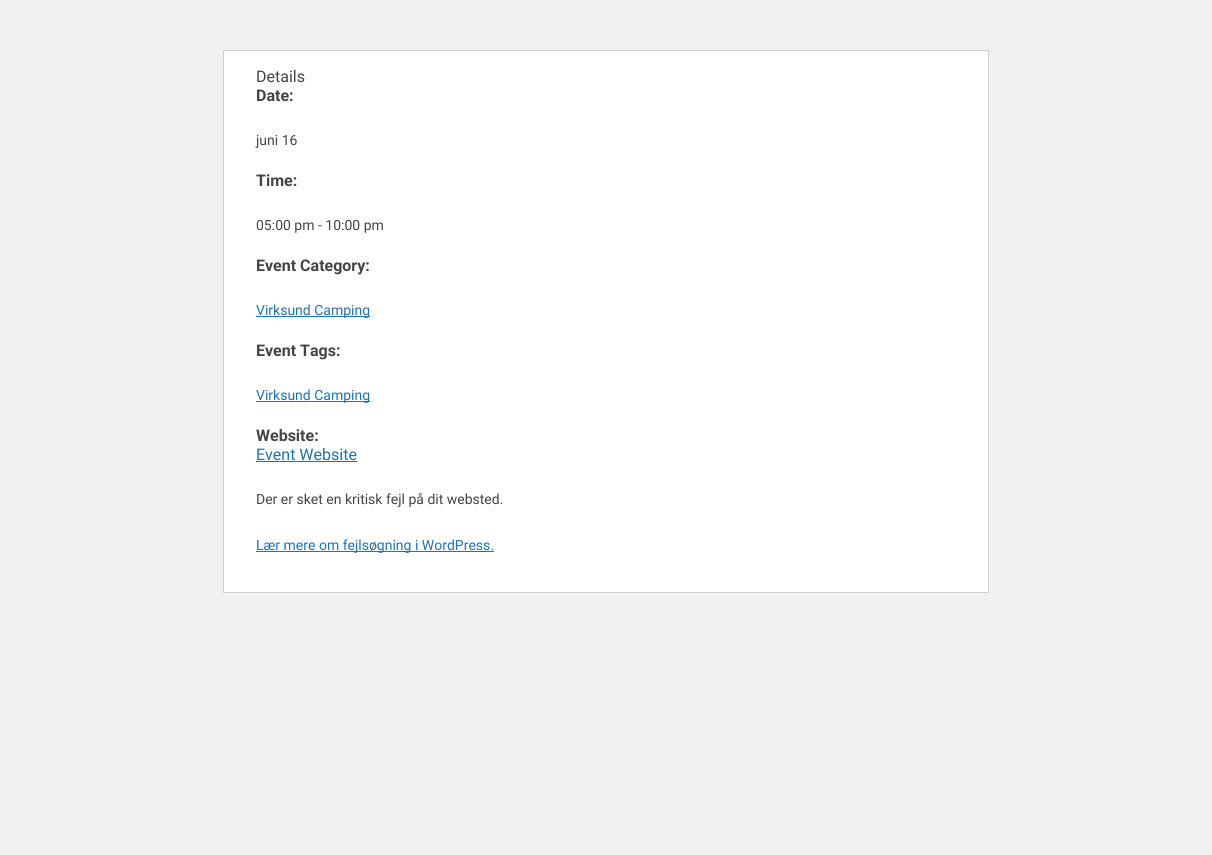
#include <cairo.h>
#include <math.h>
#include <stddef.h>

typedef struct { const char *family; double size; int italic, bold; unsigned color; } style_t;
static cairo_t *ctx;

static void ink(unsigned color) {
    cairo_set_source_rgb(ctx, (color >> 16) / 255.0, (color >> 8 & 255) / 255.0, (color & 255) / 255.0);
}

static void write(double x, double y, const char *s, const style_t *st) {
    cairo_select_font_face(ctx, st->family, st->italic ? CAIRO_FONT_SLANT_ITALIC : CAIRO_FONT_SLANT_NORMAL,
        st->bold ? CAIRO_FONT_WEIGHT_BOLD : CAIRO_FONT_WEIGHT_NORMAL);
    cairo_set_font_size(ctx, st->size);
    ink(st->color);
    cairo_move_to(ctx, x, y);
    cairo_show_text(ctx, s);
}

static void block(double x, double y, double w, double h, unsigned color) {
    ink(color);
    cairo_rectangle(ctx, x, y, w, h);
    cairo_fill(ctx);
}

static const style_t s1 = {"Roboto", 16, 0, 0, 0x444444};
static const style_t s2 = {"Roboto", 16, 0, 1, 0x444444};
static const style_t s3 = {"Roboto", 14, 0, 0, 0x444444};
static const style_t s4 = {"Roboto", 14, 0, 0, 0x2271b1};
static const style_t s5 = {"Roboto", 16, 0, 0, 0x2271b1};

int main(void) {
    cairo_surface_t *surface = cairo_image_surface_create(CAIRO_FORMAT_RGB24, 1212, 855);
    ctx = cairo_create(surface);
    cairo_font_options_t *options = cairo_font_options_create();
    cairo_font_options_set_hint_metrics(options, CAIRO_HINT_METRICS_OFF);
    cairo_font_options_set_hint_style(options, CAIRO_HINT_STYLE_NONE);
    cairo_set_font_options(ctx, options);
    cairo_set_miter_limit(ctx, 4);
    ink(0xf1f1f1);
    cairo_paint(ctx);
    ink(0xffffff);
    cairo_rectangle(ctx, 223.5, 50.5, 765, 542);
    cairo_fill_preserve(ctx);
    ink(0xccd0d4);
    cairo_set_line_width(ctx, 1);
    cairo_stroke(ctx);
    write(256, 82, "Details", &s1);
    write(256, 101, "Date:", &s2);
    write(256, 145, "juni 16", &s3);
    write(256, 186, "Time:", &s2);
    write(256, 230, "05:00 pm - 10:00 pm", &s3);
    write(256, 271, "Event Category:", &s2);
    block(256, 316, 114, 1, 0x2271b1);
    write(256, 315, "Virksund Camping", &s4);
    write(256, 356, "Event Tags:", &s2);
    block(256, 401, 114, 1, 0x2271b1);
    write(256, 400, "Virksund Camping", &s4);
    write(256, 441, "Website:", &s2);
    write(256, 460, "Event Website", &s5);
    block(256, 461, 101, 1, 0x2271b1);
    write(256, 504, "Der er sket en kritisk fejl på dit websted.", &s3);
    block(256, 551, 238, 1, 0x2271b1);
    write(256, 550, "Lær mere om fejlsøgning i WordPress.", &s4);
    cairo_surface_write_to_png(surface, "screenshot.png");
    cairo_font_options_destroy(options);
    cairo_destroy(ctx);
    cairo_surface_destroy(surface);
    return 0;
}
